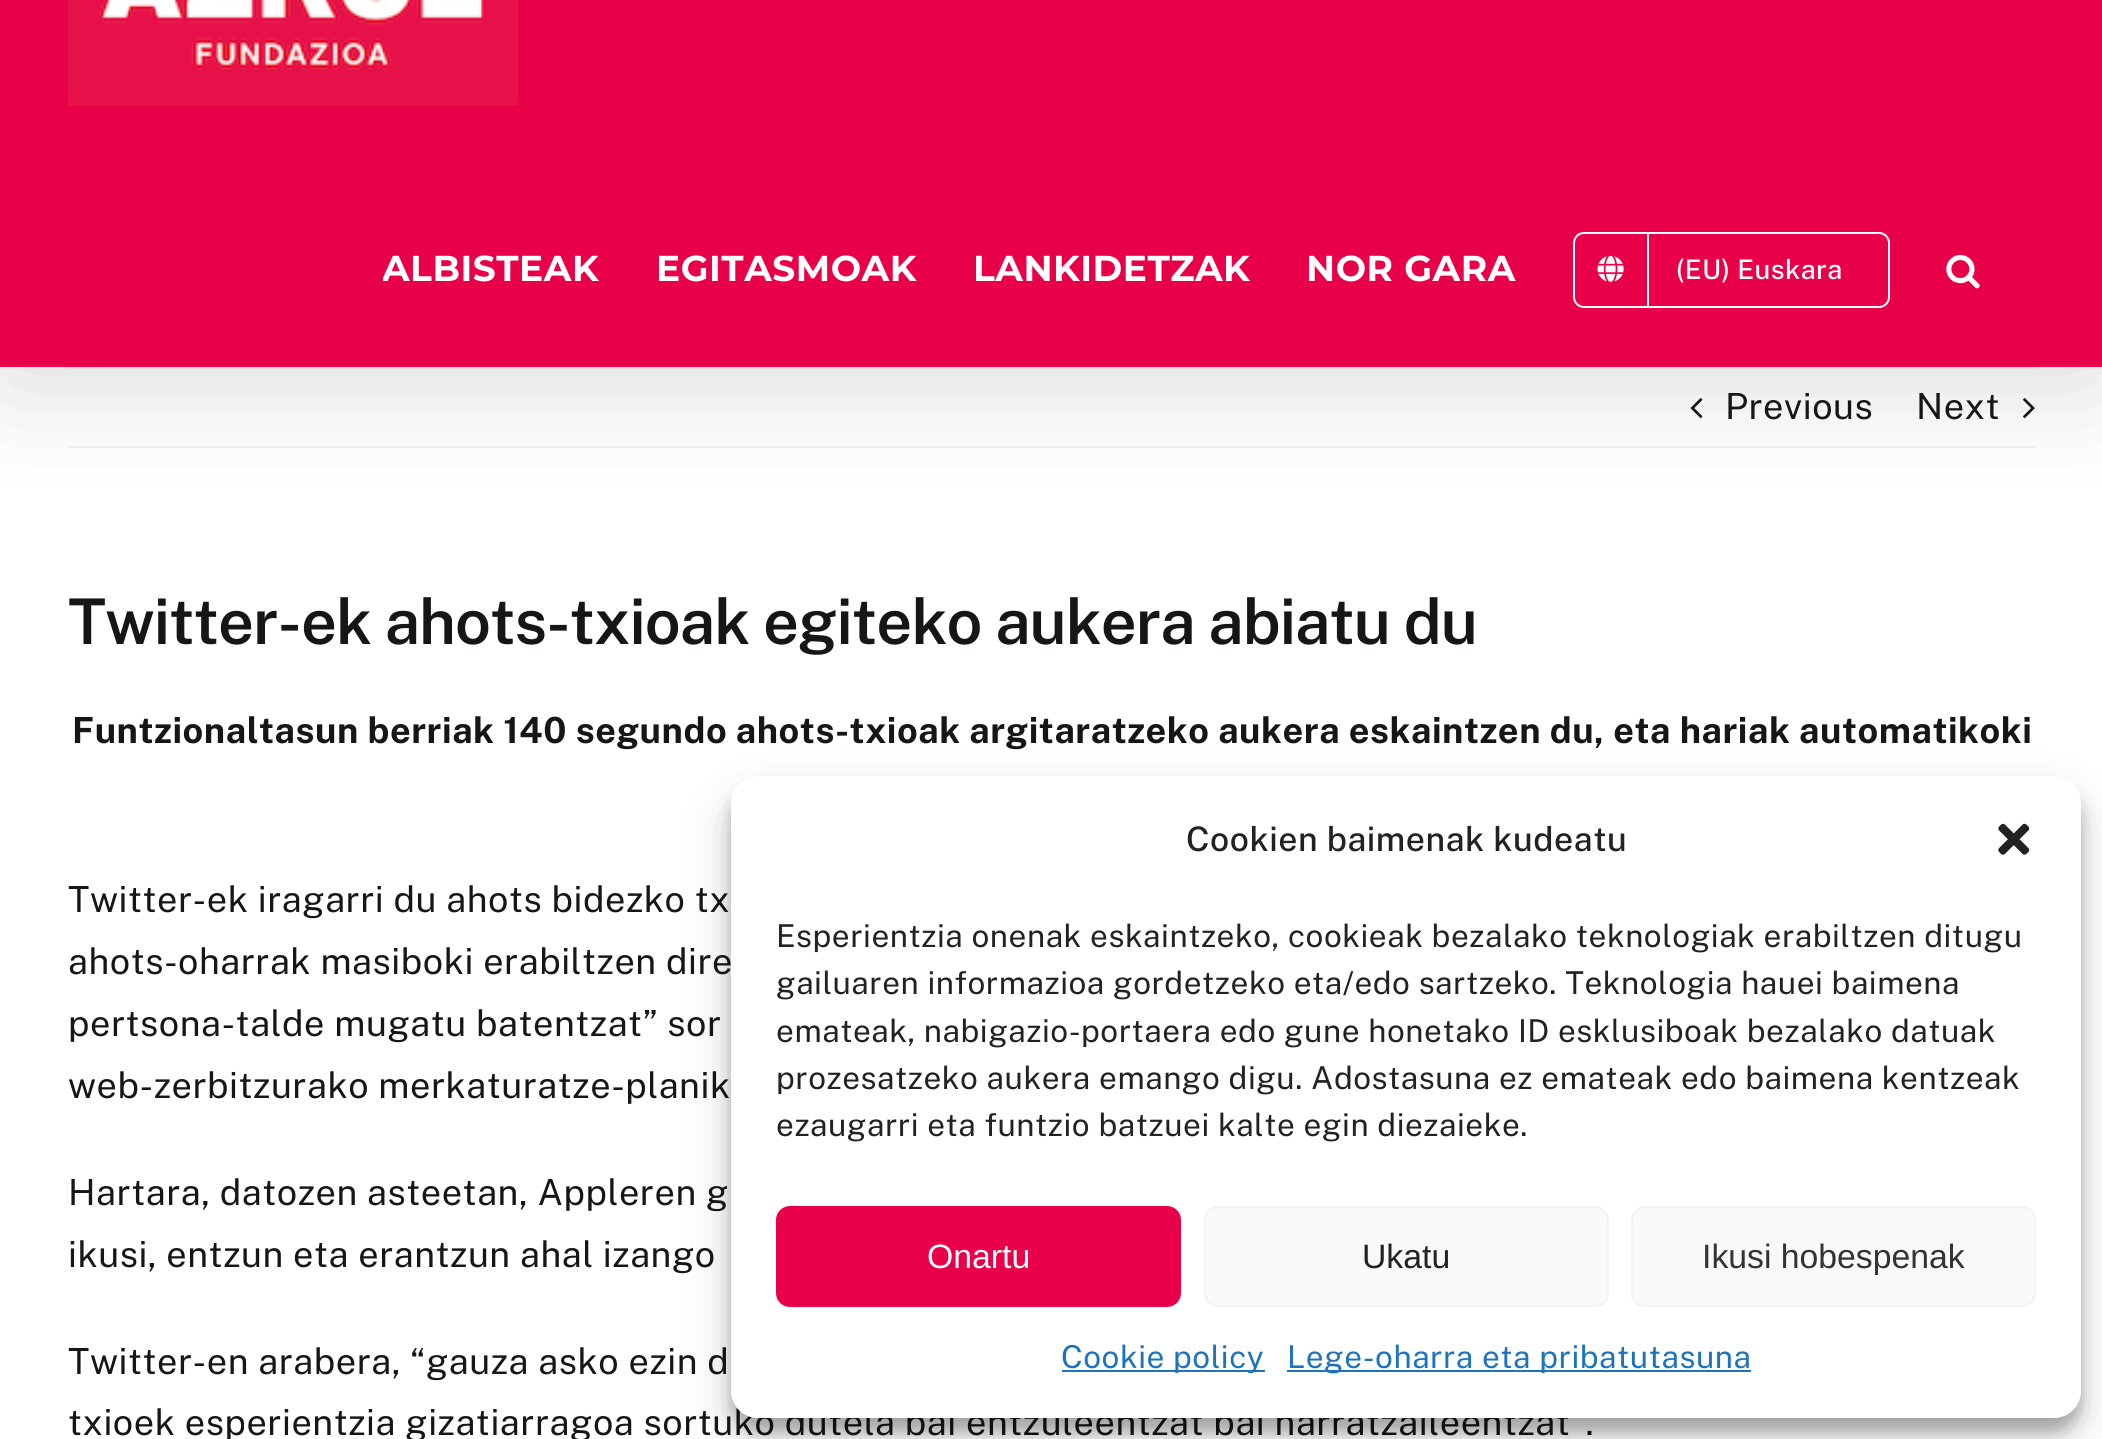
#include <cairo.h>
#include <math.h>
#include <stddef.h>

typedef struct { const char *family; double size; int italic, bold; unsigned color; } style_t;
static cairo_t *ctx;

static void ink(unsigned color) {
    cairo_set_source_rgb(ctx, (color >> 16) / 255.0, (color >> 8 & 255) / 255.0, (color & 255) / 255.0);
}

static void write(double x, double y, const char *s, const style_t *st) {
    cairo_select_font_face(ctx, st->family, st->italic ? CAIRO_FONT_SLANT_ITALIC : CAIRO_FONT_SLANT_NORMAL,
        st->bold ? CAIRO_FONT_WEIGHT_BOLD : CAIRO_FONT_WEIGHT_NORMAL);
    cairo_set_font_size(ctx, st->size);
    ink(st->color);
    cairo_move_to(ctx, x, y);
    cairo_show_text(ctx, s);
}

static void write_spaced(double x, double y, const char *s, double letter, double word) {
    cairo_move_to(ctx, x, y);
    while (*s) {
        char ch[5] = {0};
        int n = 0;
        do ch[n++] = *s++; while ((*s & 0xC0) == 0x80);
        cairo_show_text(ctx, ch);
        cairo_rel_move_to(ctx, letter + word * (*ch == ' '), 0);
    }
}

static void block(double x, double y, double w, double h, unsigned color) {
    ink(color);
    cairo_rectangle(ctx, x, y, w, h);
    cairo_fill(ctx);
}

static void round_path(double x, double y, double w, double h, double r) {
    cairo_new_sub_path(ctx);
    cairo_arc(ctx, x + w - r, y + h - r, r, 0, M_PI / 2);
    cairo_arc(ctx, x + r, y + h - r, r, M_PI / 2, M_PI);
    cairo_arc(ctx, x + r, y + r, r, M_PI, 1.5 * M_PI);
    cairo_arc(ctx, x + w - r, y + r, r, 1.5 * M_PI, 2 * M_PI);
    cairo_close_path(ctx);
}

static void blur_box(double x, double y, double w, double h, double r, double blur, double alpha) {
    cairo_push_group_with_content(ctx, CAIRO_CONTENT_ALPHA);
    cairo_set_operator(ctx, CAIRO_OPERATOR_SOURCE);
    for (int i = 15; i >= -15 && fmin(w, h) + blur * i / 3 > 0; i -= 2) {
        double e = blur * i / 6;
        cairo_set_source_rgba(ctx, 0, 0, 0, alpha * erfc((i - 1) / 8.5) / 2);
        round_path(x - e, y - e, w + 2 * e, h + 2 * e, fmax(0, fmin(r + e + blur * .6, fmin(w, h) / 2 + e)));
        cairo_fill(ctx);
    }
    cairo_pattern_t *soft = cairo_pop_group(ctx);
    cairo_mask(ctx, soft);
    cairo_pattern_destroy(soft);
}

static void paste(const char *path, double x, double y, double w, double h) {
    cairo_surface_t *image = cairo_image_surface_create_from_png(path);
    cairo_save(ctx);
    cairo_set_source_surface(ctx, image, x, y);
    cairo_rectangle(ctx, x, y, w, h);
    cairo_fill(ctx);
    cairo_restore(ctx);
    cairo_surface_destroy(image);
}

static const style_t s1 = {"Liberation Sans", 33.75, 0, 0, 0xffffff};
static const style_t s2 = {"Liberation Sans", 33.75, 0, 0, 0x222222};
static const style_t s3 = {"Liberation Sans", 33.75, 0, 0, 0x333333};

int main(void) {
    cairo_surface_t *surface = cairo_image_surface_create(CAIRO_FORMAT_RGB24, 2102, 1439);
    ctx = cairo_create(surface);
    cairo_font_options_t *options = cairo_font_options_create();
    cairo_font_options_set_hint_metrics(options, CAIRO_HINT_METRICS_OFF);
    cairo_font_options_set_hint_style(options, CAIRO_HINT_STYLE_NONE);
    cairo_set_font_options(ctx, options);
    cairo_set_miter_limit(ctx, 4);
    ink(0xffffff);
    cairo_paint(ctx);
    block(68, 367, 1968, 2, 0xf2f3f5);
    block(68, 446, 1968, 2, 0xf2f3f5);
    paste("pic4.png", 1690, 398, 13, 21);
    paste("pic5.png", 2023, 398, 12, 21);
    ink(0x000000);
    blur_box(5, -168, 2094, 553, 0, 56, 0.14);
    block(0, 0, 2102, 367, 0xe80049);
    paste("pic1.png", 68, 0, 450, 106);
    cairo_save(ctx);
    cairo_rectangle(ctx, 383, 176, 1653, 189);
    cairo_clip(ctx);
    cairo_select_font_face(ctx, "Montserrat Thin", CAIRO_FONT_SLANT_NORMAL, CAIRO_FONT_WEIGHT_NORMAL);
    cairo_set_font_size(ctx, 36);
    ink(0xffffff);
    write_spaced(382, 281, "ALBISTEAK", 0.54, 0);
    cairo_restore(ctx);
    cairo_select_font_face(ctx, "Montserrat Thin", CAIRO_FONT_SLANT_NORMAL, CAIRO_FONT_WEIGHT_NORMAL);
    cairo_set_font_size(ctx, 36);
    ink(0xffffff);
    write_spaced(656, 281, "EGITASMOAK", 0.54, 0);
    write_spaced(973, 281, "LANKIDETZAK", 0.54, 0);
    write_spaced(1306, 281, "NOR GARA", 0.54, 0);
    round_path(1574, 233, 315, 74, 10);
    cairo_stroke(ctx);
    block(1647, 234, 2, 72, 0xffffff);
    paste("pic2.png", 1597, 255, 27, 27);
    cairo_select_font_face(ctx, "Public Sans Medium", CAIRO_FONT_SLANT_NORMAL, CAIRO_FONT_WEIGHT_NORMAL);
    cairo_set_font_size(ctx, 27);
    write_spaced(1676, 279, "(EU) Euskara", 0.4, 0);
    paste("pic3.png", 1946, 254, 34, 35);
    cairo_select_font_face(ctx, "Public Sans", CAIRO_FONT_SLANT_NORMAL, CAIRO_FONT_WEIGHT_NORMAL);
    cairo_set_font_size(ctx, 36);
    ink(0x141617);
    write_spaced(1725, 419, "Previous", 0.54, 0);
    write_spaced(1916, 419, "Next", 0.54, 0);
    cairo_select_font_face(ctx, "Public Sans SemiBold", CAIRO_FONT_SLANT_NORMAL, CAIRO_FONT_WEIGHT_NORMAL);
    cairo_set_font_size(ctx, 63);
    write_spaced(68, 644, "Twitter-ek ahots-txioak egiteko aukera abiatu du", -0.95, 0);
    cairo_select_font_face(ctx, "Public Sans", CAIRO_FONT_SLANT_NORMAL, CAIRO_FONT_WEIGHT_BOLD);
    cairo_set_font_size(ctx, 36);
    write_spaced(72, 743, "Funtzionaltasun berriak 140 segundo ahots-txioak argitaratzeko aukera eskaintzen du, eta hariak automatikoki", 0.54, 0);
    cairo_select_font_face(ctx, "Public Sans", CAIRO_FONT_SLANT_NORMAL, CAIRO_FONT_WEIGHT_NORMAL);
    write_spaced(68, 912, "Twitter-ek iragarri du ahots bidezko tx", 0.54, 0);
    write_spaced(68, 974, "ahots-oharrak masiboki erabiltzen dire", 0.54, 0);
    write_spaced(68, 1036, "pertsona-talde mugatu batentzat” sor", 0.54, 0);
    write_spaced(68, 1098, "web-zerbitzurako merkaturatze-planik", 0.54, 0);
    write_spaced(68, 1205, "Hartara, datozen asteetan, Appleren g", 0.54, 0);
    write_spaced(68, 1267, "ikusi, entzun eta erantzun ahal izango", 0.54, 0);
    write_spaced(68, 1374, "Twitter-en arabera, “gauza asko ezin d", 0.54, 0);
    write_spaced(68, 1435, "txioek esperientzia gizatiarragoa sortuko dutela bai entzuleentzat bai narratzaileentzat”.", 0.54, 0);
    ink(0x000000);
    blur_box(731, 790, 1350, 641, 27, 7, 0.23);
    blur_box(731, 799, 1350, 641, 27, 22.5, 0.19);
    ink(0xffffff);
    round_path(731, 776, 1350, 642, 27);
    cairo_fill(ctx);
    cairo_select_font_face(ctx, "Public Sans Medium", CAIRO_FONT_SLANT_NORMAL, CAIRO_FONT_WEIGHT_NORMAL);
    cairo_set_font_size(ctx, 33.75);
    ink(0x222222);
    write_spaced(1186, 851, "Cookien baimenak kudeatu", 0.54, 0);
    paste("pic6.png", 1998, 823, 32, 32);
    cairo_select_font_face(ctx, "Public Sans", CAIRO_FONT_SLANT_NORMAL, CAIRO_FONT_WEIGHT_NORMAL);
    cairo_set_font_size(ctx, 31.5);
    write_spaced(776, 947, "Esperientzia onenak eskaintzeko, cookieak bezalako teknologiak erabiltzen ditugu", 0.54, 0);
    write_spaced(776, 994, "gailuaren informazioa gordetzeko eta/edo sartzeko. Teknologia hauei baimena", 0.54, 0);
    write_spaced(776, 1042, "emateak, nabigazio-portaera edo gune honetako ID esklusiboak bezalako datuak", 0.54, 0);
    write_spaced(776, 1089, "prozesatzeko aukera emango digu. Adostasuna ez emateak edo baimena kentzeak", 0.54, 0);
    write_spaced(776, 1136, "ezaugarri eta funtzio batzuei kalte egin diezaieke.", 0.54, 0);
    ink(0xe80049);
    round_path(777, 1207, 403, 99, 13);
    cairo_fill_preserve(ctx);
    cairo_stroke(ctx);
    write(927, 1268, "Onartu", &s1);
    ink(0xf9f9f9);
    round_path(1205, 1207, 403, 99, 13);
    cairo_fill_preserve(ctx);
    ink(0xf2f2f2);
    cairo_stroke(ctx);
    write(1362, 1268, "Ukatu", &s2);
    ink(0xf9f9f9);
    round_path(1632, 1207, 403, 99, 13);
    cairo_fill_preserve(ctx);
    ink(0xf2f2f2);
    cairo_stroke(ctx);
    write(1702, 1268, "Ikusi hobespenak", &s3);
    block(1062, 1370, 203, 2, 0x1e73be);
    cairo_select_font_face(ctx, "Public Sans", CAIRO_FONT_SLANT_NORMAL, CAIRO_FONT_WEIGHT_NORMAL);
    cairo_set_font_size(ctx, 31.5);
    write_spaced(1061, 1368, "Cookie policy", 0.54, 0);
    block(1287, 1370, 464, 2, 0x1e73be);
    write_spaced(1287, 1368, "Lege-oharra eta pribatutasuna", 0.54, 0);
    cairo_surface_write_to_png(surface, "screenshot.png");
    cairo_font_options_destroy(options);
    cairo_destroy(ctx);
    cairo_surface_destroy(surface);
    return 0;
}
